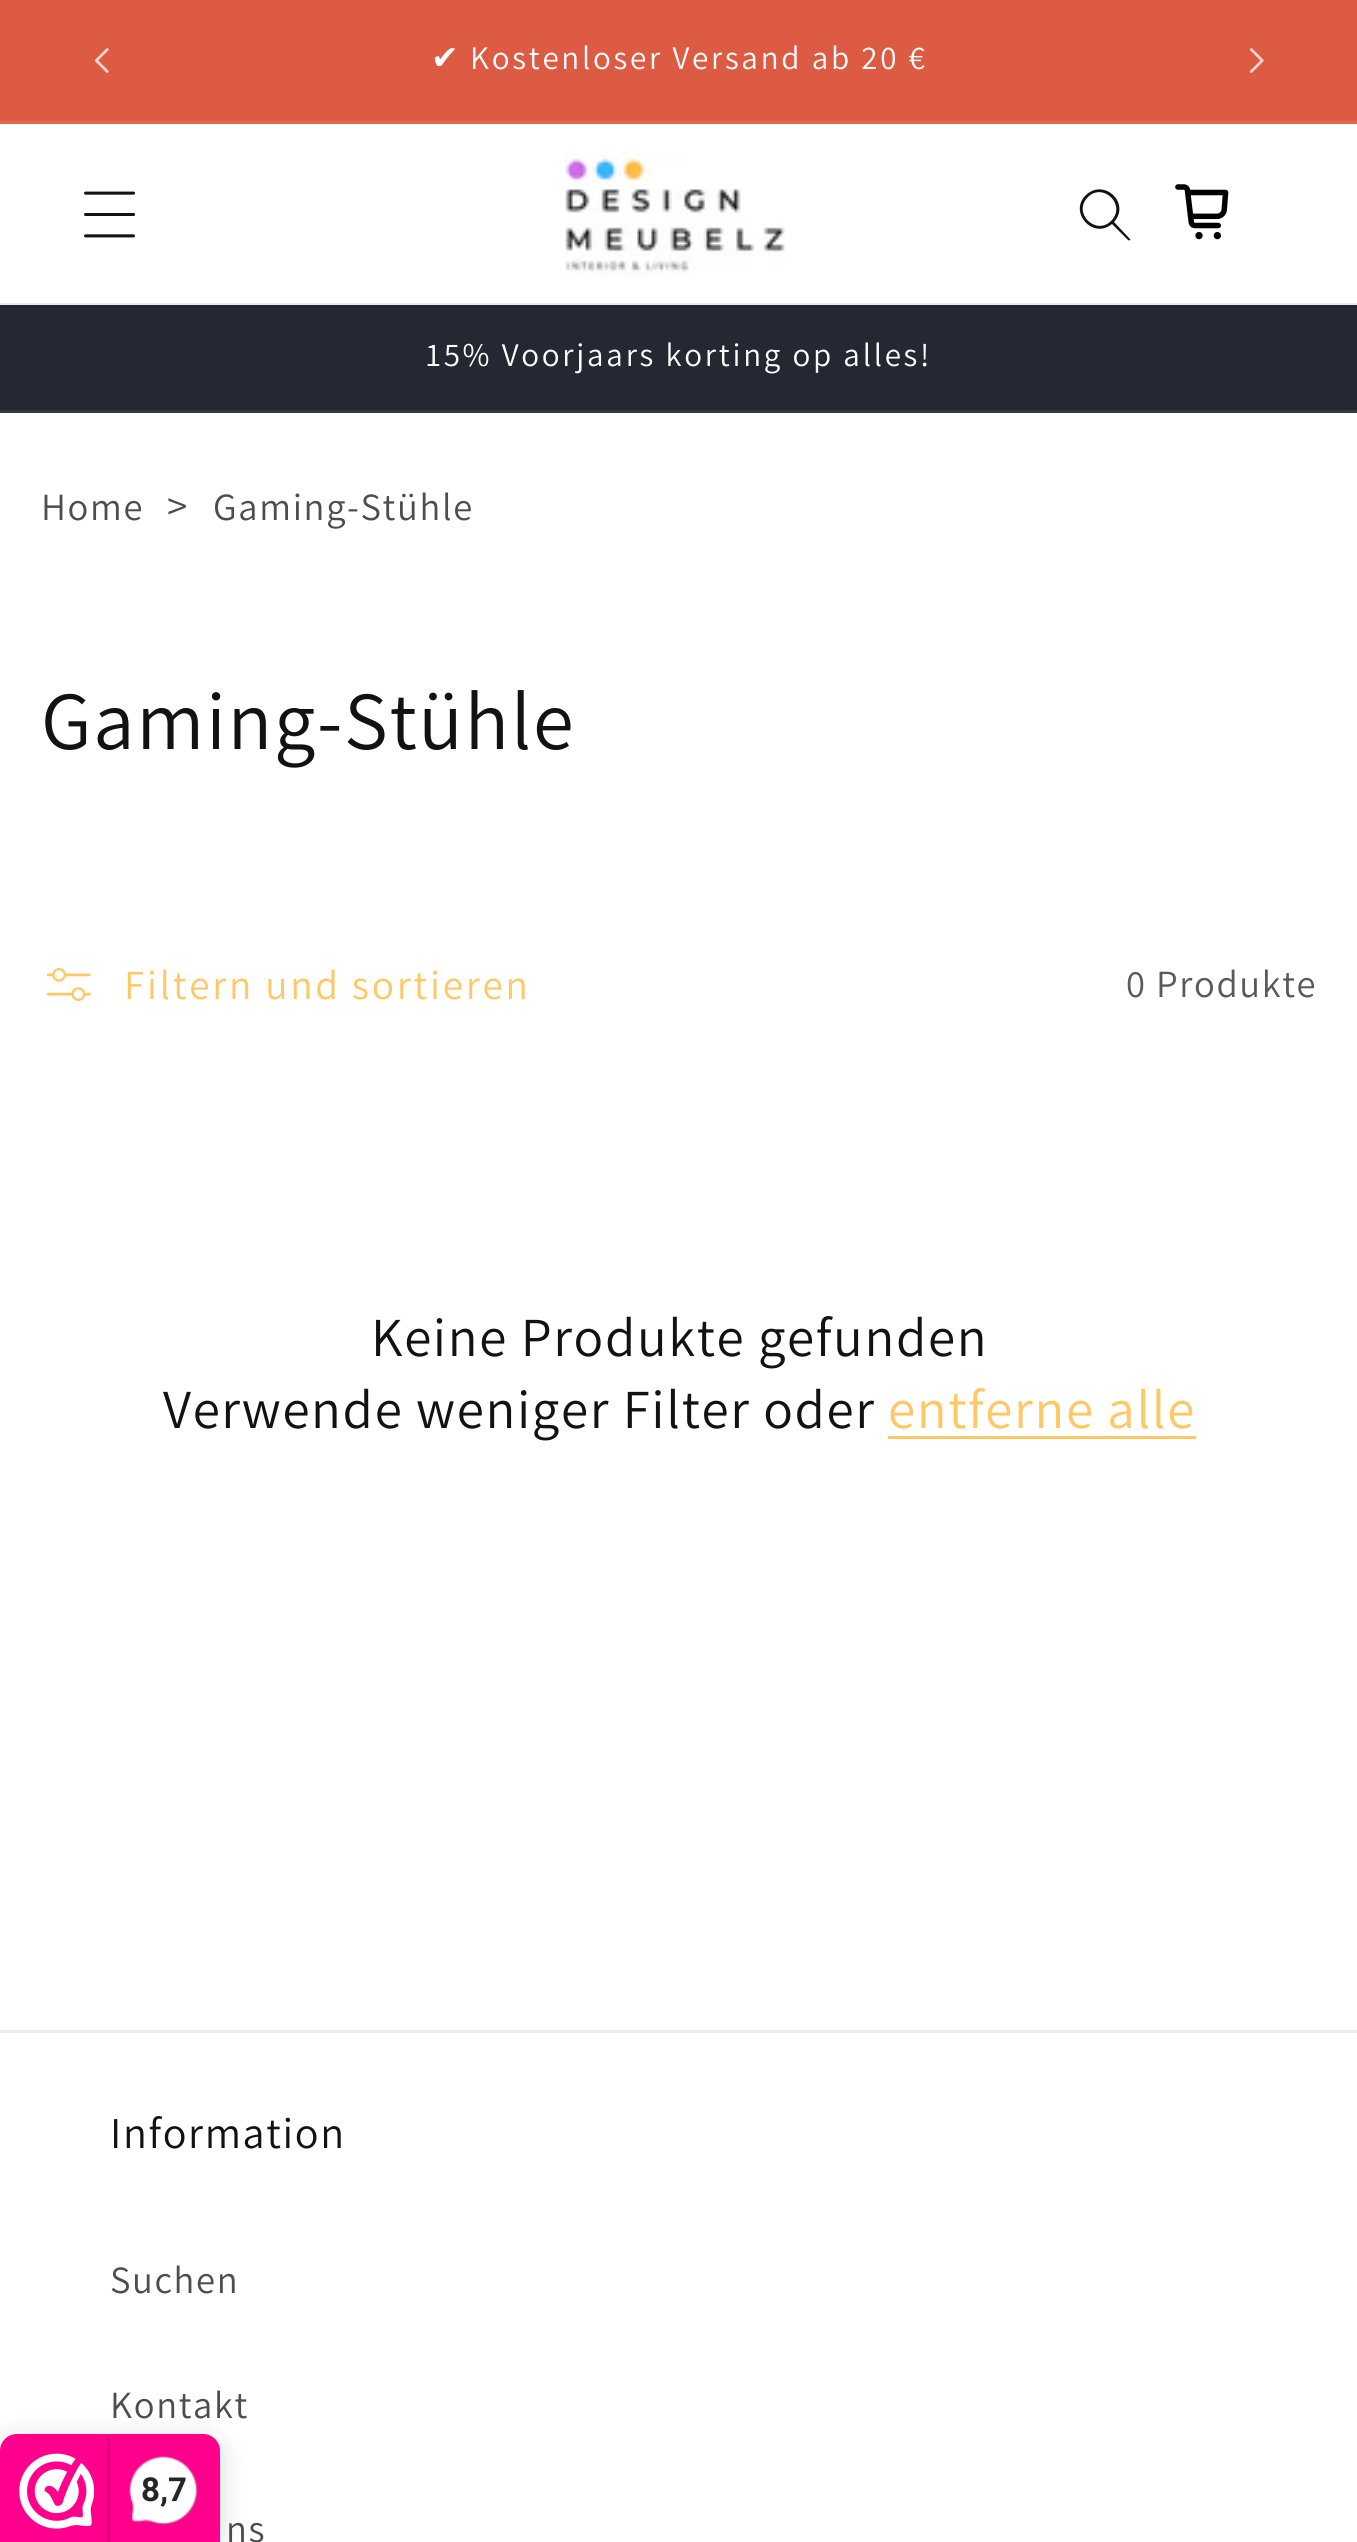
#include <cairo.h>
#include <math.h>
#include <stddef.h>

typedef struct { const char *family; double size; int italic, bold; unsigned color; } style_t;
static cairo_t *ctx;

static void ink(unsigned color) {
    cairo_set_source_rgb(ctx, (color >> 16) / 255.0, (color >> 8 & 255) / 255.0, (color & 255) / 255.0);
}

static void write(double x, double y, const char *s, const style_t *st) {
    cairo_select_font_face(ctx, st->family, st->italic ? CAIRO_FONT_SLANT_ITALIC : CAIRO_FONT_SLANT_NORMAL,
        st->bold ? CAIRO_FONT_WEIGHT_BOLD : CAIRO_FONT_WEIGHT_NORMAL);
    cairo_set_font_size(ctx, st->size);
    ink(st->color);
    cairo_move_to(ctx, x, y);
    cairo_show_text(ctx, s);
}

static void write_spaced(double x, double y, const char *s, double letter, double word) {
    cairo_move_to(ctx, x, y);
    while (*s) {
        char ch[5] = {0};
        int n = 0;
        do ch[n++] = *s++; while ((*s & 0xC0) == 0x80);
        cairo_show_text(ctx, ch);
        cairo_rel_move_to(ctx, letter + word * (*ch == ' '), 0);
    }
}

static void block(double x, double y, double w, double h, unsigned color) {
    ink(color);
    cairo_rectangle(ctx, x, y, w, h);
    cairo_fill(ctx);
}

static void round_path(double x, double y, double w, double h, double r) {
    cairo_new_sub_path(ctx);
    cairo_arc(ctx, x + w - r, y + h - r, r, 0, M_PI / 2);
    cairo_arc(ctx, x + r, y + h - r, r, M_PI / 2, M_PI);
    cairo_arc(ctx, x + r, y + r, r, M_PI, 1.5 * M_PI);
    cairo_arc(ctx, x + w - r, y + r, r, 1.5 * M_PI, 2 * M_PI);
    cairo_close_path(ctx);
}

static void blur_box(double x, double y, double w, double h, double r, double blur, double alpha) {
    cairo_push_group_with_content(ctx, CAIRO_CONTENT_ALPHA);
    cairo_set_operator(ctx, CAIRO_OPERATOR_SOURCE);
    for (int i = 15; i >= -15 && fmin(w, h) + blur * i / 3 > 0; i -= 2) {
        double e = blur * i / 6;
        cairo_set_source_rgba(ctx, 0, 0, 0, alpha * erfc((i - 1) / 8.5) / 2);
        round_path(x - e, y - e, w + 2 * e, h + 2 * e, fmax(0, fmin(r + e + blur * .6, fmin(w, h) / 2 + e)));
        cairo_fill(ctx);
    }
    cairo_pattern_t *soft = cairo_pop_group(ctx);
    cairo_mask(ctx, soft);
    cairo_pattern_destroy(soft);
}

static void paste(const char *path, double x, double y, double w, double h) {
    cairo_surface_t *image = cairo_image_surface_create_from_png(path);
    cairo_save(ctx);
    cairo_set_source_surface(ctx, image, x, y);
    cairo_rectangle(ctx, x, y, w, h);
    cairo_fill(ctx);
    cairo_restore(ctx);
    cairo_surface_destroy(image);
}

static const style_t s1 = {"Roboto", 33, 0, 1, 0x272626};

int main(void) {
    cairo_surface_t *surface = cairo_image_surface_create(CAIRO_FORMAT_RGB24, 1357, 2542);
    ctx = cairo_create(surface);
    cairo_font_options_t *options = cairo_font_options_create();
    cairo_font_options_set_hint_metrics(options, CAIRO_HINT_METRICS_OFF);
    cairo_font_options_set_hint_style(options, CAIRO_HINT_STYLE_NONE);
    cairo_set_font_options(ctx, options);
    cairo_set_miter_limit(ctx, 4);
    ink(0xffffff);
    cairo_paint(ctx);
    block(0, 303, 1357, 2, 0xececec);
    block(0, 0, 1357, 121, 0xdd5a43);
    block(0, 121, 1357, 3, 0xe06752);
    paste("pic1.png", 94, 48, 15, 25);
    cairo_select_font_face(ctx, "DejaVu Sans", CAIRO_FONT_SLANT_NORMAL, CAIRO_FONT_WEIGHT_NORMAL);
    cairo_set_font_size(ctx, 33);
    ink(0xffffff);
    write_spaced(431, 69, "✔", 2.75, 0);
    cairo_select_font_face(ctx, "Assistant", CAIRO_FONT_SLANT_NORMAL, CAIRO_FONT_WEIGHT_NORMAL);
    write_spaced(470, 69, "Kostenloser Versand ab 20 €", 2.75, 0);
    paste("pic2.png", 1249, 48, 15, 25);
    paste("pic3.png", 84, 191, 52, 47);
    paste("pic4.png", 564, 152, 221, 125);
    ink(0x121212);
    cairo_set_fill_rule(ctx, CAIRO_FILL_RULE_EVEN_ODD);
    cairo_new_path(ctx);
    cairo_move_to(ctx, 1111, 221);
    cairo_curve_to(ctx, 1096, 236, 1072, 213, 1088, 197);
    cairo_curve_to(ctx, 1103, 182, 1127, 205, 1111, 221);
    cairo_move_to(ctx, 1112, 224);
    cairo_curve_to(ctx, 1093, 240, 1068, 212, 1086, 195);
    cairo_curve_to(ctx, 1104, 178, 1131, 203, 1114, 222);
    cairo_line_to(ctx, 1130, 239);
    cairo_curve_to(ctx, 1131, 240, 1129, 241, 1128, 240);
    cairo_close_path(ctx);
    cairo_fill(ctx);
    paste("pic5.png", 1175, 184, 54, 56);
    block(0, 306, 1357, 104, 0x242833);
    block(0, 305, 1357, 1, 0x232630);
    block(0, 410, 1357, 3, 0x363943);
    ink(0xffffff);
    write_spaced(426, 366, "15% Voorjaars korting op alles!", 2.75, 0);
    cairo_set_font_size(ctx, 38.5);
    ink(0x4d4d4d);
    write_spaced(41, 520, "Home", 1.65, 0);
    cairo_set_font_size(ctx, 41.25);
    write_spaced(167, 520, ">", 1.65, 0);
    cairo_set_font_size(ctx, 38.5);
    write_spaced(213, 520, "Gaming-Stühle", 1.65, 0);
    cairo_set_font_size(ctx, 82.5);
    ink(0x121212);
    write_spaced(41, 749, "Gaming-Stühle", 1.65, 0);
    paste("pic6.png", 46, 968, 45, 33);
    cairo_set_font_size(ctx, 41.25);
    ink(0xffc867);
    write_spaced(124, 999, "Filtern und sortieren", 2.75, 0);
    cairo_set_font_size(ctx, 38.5);
    ink(0x595959);
    write_spaced(1126, 997, "0 Produkte", 1.65, 0);
    cairo_set_font_size(ctx, 55);
    ink(0x121212);
    write_spaced(371, 1356, "Keine Produkte gefunden", 1.65, 0);
    write_spaced(163, 1428, "Verwende weniger Filter oder", 1.65, 0);
    ink(0xffc867);
    write_spaced(888, 1428, "entferne alle", 1.65, 0);
    block(888, 1436, 308, 3, 0xffc867);
    block(0, 2030, 1357, 3, 0xececec);
    cairo_set_font_size(ctx, 44);
    ink(0x121212);
    write_spaced(110, 2148, "Information", 1.65, 0);
    cairo_set_font_size(ctx, 38.5);
    ink(0x4d4d4d);
    write_spaced(110, 2293, "Suchen", 1.65, 0);
    write_spaced(110, 2418, "Kontakt", 1.65, 0);
    write_spaced(226, 2542, "ns", 1.65, 0);
    ink(0x000000);
    blur_box(0, 2439, 220, 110, 17, 14, 0.15);
    ink(0xfe008c);
    cairo_new_path(ctx);
    cairo_move_to(ctx, 17, 2434);
    cairo_line_to(ctx, 203, 2434);
    cairo_curve_to(ctx, 212.5, 2434, 220, 2441.5, 220, 2451);
    cairo_line_to(ctx, 220, 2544);
    cairo_line_to(ctx, 0, 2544);
    cairo_line_to(ctx, 0, 2451);
    cairo_curve_to(ctx, 0, 2441.5, 7.5, 2434, 17, 2434);
    cairo_close_path(ctx);
    cairo_fill(ctx);
    paste("pic7.png", 19, 2453, 75, 76);
    block(107, 2437, 3, 105, 0xd80077);
    paste("pic8.png", 129, 2456, 69, 69);
    write(141, 2501, "8,7", &s1);
    cairo_surface_write_to_png(surface, "screenshot.png");
    cairo_font_options_destroy(options);
    cairo_destroy(ctx);
    cairo_surface_destroy(surface);
    return 0;
}
